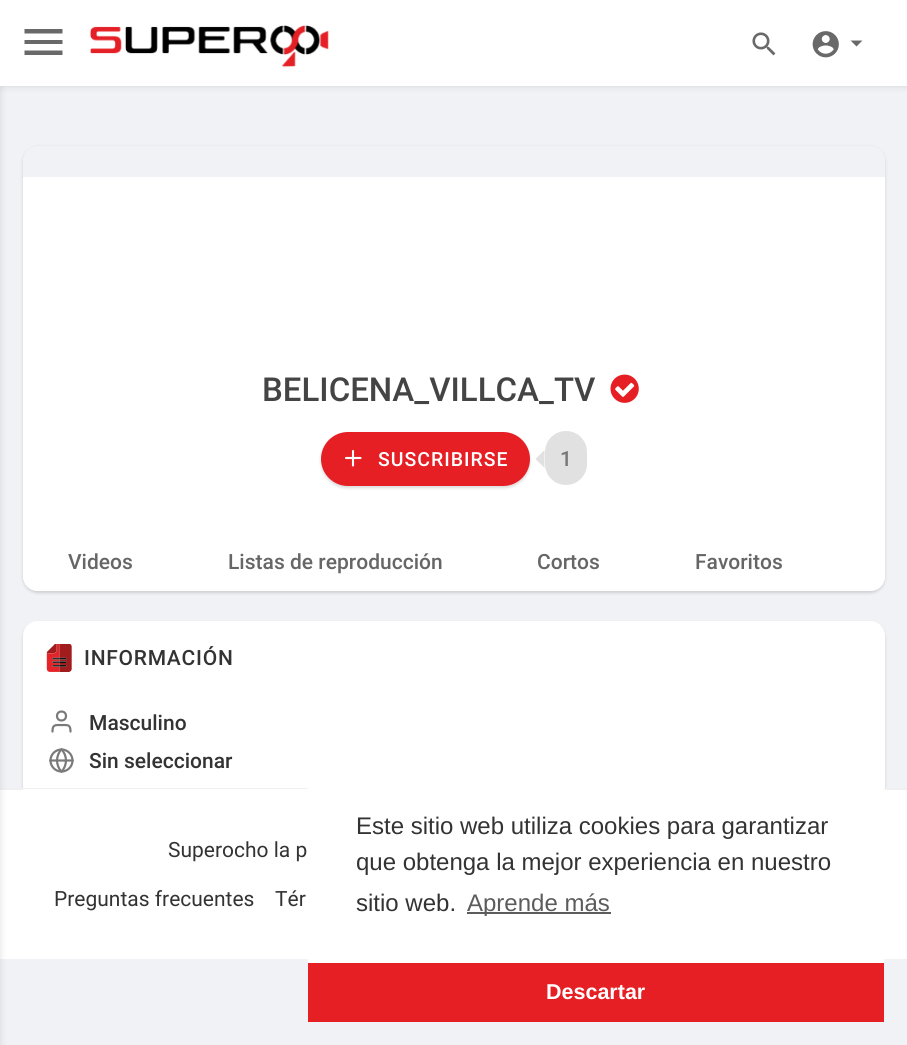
#include <cairo.h>
#include <math.h>
#include <stddef.h>

typedef struct { const char *family; double size; int italic, bold; unsigned color; } style_t;
static cairo_t *ctx;

static void ink(unsigned color) {
    cairo_set_source_rgb(ctx, (color >> 16) / 255.0, (color >> 8 & 255) / 255.0, (color & 255) / 255.0);
}

static void write(double x, double y, const char *s, const style_t *st) {
    cairo_select_font_face(ctx, st->family, st->italic ? CAIRO_FONT_SLANT_ITALIC : CAIRO_FONT_SLANT_NORMAL,
        st->bold ? CAIRO_FONT_WEIGHT_BOLD : CAIRO_FONT_WEIGHT_NORMAL);
    cairo_set_font_size(ctx, st->size);
    ink(st->color);
    cairo_move_to(ctx, x, y);
    cairo_show_text(ctx, s);
}

static void write_spaced(double x, double y, const char *s, double letter, double word) {
    cairo_move_to(ctx, x, y);
    while (*s) {
        char ch[5] = {0};
        int n = 0;
        do ch[n++] = *s++; while ((*s & 0xC0) == 0x80);
        cairo_show_text(ctx, ch);
        cairo_rel_move_to(ctx, letter + word * (*ch == ' '), 0);
    }
}

static void block(double x, double y, double w, double h, unsigned color) {
    ink(color);
    cairo_rectangle(ctx, x, y, w, h);
    cairo_fill(ctx);
}

static void round_path(double x, double y, double w, double h, double r) {
    cairo_new_sub_path(ctx);
    cairo_arc(ctx, x + w - r, y + h - r, r, 0, M_PI / 2);
    cairo_arc(ctx, x + r, y + h - r, r, M_PI / 2, M_PI);
    cairo_arc(ctx, x + r, y + r, r, M_PI, 1.5 * M_PI);
    cairo_arc(ctx, x + w - r, y + r, r, 1.5 * M_PI, 2 * M_PI);
    cairo_close_path(ctx);
}

static void blur_box(double x, double y, double w, double h, double r, double blur, double alpha) {
    cairo_push_group_with_content(ctx, CAIRO_CONTENT_ALPHA);
    cairo_set_operator(ctx, CAIRO_OPERATOR_SOURCE);
    for (int i = 15; i >= -15 && fmin(w, h) + blur * i / 3 > 0; i -= 2) {
        double e = blur * i / 6;
        cairo_set_source_rgba(ctx, 0, 0, 0, alpha * erfc((i - 1) / 8.5) / 2);
        round_path(x - e, y - e, w + 2 * e, h + 2 * e, fmax(0, fmin(r + e + blur * .6, fmin(w, h) / 2 + e)));
        cairo_fill(ctx);
    }
    cairo_pattern_t *soft = cairo_pop_group(ctx);
    cairo_mask(ctx, soft);
    cairo_pattern_destroy(soft);
}

static void paste(const char *path, double x, double y, double w, double h) {
    cairo_surface_t *image = cairo_image_surface_create_from_png(path);
    cairo_save(ctx);
    cairo_set_source_surface(ctx, image, x, y);
    cairo_rectangle(ctx, x, y, w, h);
    cairo_fill(ctx);
    cairo_restore(ctx);
    cairo_surface_destroy(image);
}

static const style_t s1 = {"Roboto Medium", 33, 0, 0, 0x444444};
static const style_t s2 = {"Roboto Medium", 21, 0, 0, 0x777777};
static const style_t s3 = {"Roboto Medium", 21, 0, 0, 0x666666};
static const style_t s4 = {"Roboto Medium", 21, 0, 0, 0x333333};
static const style_t s5 = {"Roboto", 21, 0, 0, 0x333333};
static const style_t s6 = {"Liberation Sans", 24, 0, 0, 0x333333};
static const style_t s7 = {"Liberation Sans", 24, 0, 0, 0x5c5c5c};
static const style_t s8 = {"Liberation Sans", 21.5, 0, 1, 0xffffff};

int main(void) {
    cairo_surface_t *surface = cairo_image_surface_create(CAIRO_FORMAT_RGB24, 907, 1045);
    ctx = cairo_create(surface);
    cairo_font_options_t *options = cairo_font_options_create();
    cairo_font_options_set_hint_metrics(options, CAIRO_HINT_METRICS_OFF);
    cairo_font_options_set_hint_style(options, CAIRO_HINT_STYLE_NONE);
    cairo_set_font_options(ctx, options);
    cairo_set_miter_limit(ctx, 4);
    ink(0xf0f2f5);
    cairo_paint(ctx);
    ink(0x000000);
    blur_box(0, 0, 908, 86, 0, 4, 0.12);
    blur_box(23, 623, 862, 192, 15, 1.5, 0.15);
    ink(0xffffff);
    round_path(23, 621, 862, 192, 15);
    cairo_fill(ctx);
    block(0, 790, 907, 169, 0xffffff);
    block(0, 788, 907, 2, 0xf0f0f0);
    ink(0x000000);
    blur_box(-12, 86, 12, 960, 0, 4, 0.12);
    block(0, 0, 907, 86, 0xffffff);
    ink(0x696969);
    cairo_new_path(ctx);
    cairo_move_to(ctx, 24.5, 29);
    cairo_line_to(ctx, 62.5, 29);
    cairo_line_to(ctx, 62.5, 33.5);
    cairo_line_to(ctx, 24.5, 33.5);
    cairo_line_to(ctx, 24.5, 29);
    cairo_move_to(ctx, 24.5, 40);
    cairo_line_to(ctx, 62.5, 40);
    cairo_line_to(ctx, 62.5, 44);
    cairo_line_to(ctx, 24.5, 44);
    cairo_line_to(ctx, 24.5, 40);
    cairo_move_to(ctx, 24.5, 50.5);
    cairo_line_to(ctx, 62.5, 50.5);
    cairo_line_to(ctx, 62.5, 55);
    cairo_line_to(ctx, 24.5, 55);
    cairo_close_path(ctx);
    cairo_fill(ctx);
    paste("pic1.png", 90, 25, 239, 43);
    paste("pic2.png", 752, 32, 24, 24);
    paste("pic3.png", 812, 31, 27, 27);
    cairo_new_path(ctx);
    cairo_move_to(ctx, 850.5, 40.5);
    cairo_line_to(ctx, 862.5, 40.5);
    cairo_line_to(ctx, 856.5, 46.5);
    cairo_close_path(ctx);
    cairo_fill(ctx);
    cairo_save(ctx);
    cairo_set_fill_rule(ctx, CAIRO_FILL_RULE_EVEN_ODD);
    cairo_new_path(ctx);
    cairo_move_to(ctx, 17, 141);
    cairo_line_to(ctx, 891, 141);
    cairo_line_to(ctx, 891, 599);
    cairo_line_to(ctx, 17, 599);
    cairo_close_path(ctx);
    cairo_move_to(ctx, 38, 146);
    cairo_line_to(ctx, 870, 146);
    cairo_curve_to(ctx, 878.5, 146, 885, 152.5, 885, 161);
    cairo_line_to(ctx, 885, 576);
    cairo_curve_to(ctx, 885, 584.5, 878.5, 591, 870, 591);
    cairo_line_to(ctx, 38, 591);
    cairo_curve_to(ctx, 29.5, 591, 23, 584.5, 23, 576);
    cairo_line_to(ctx, 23, 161);
    cairo_curve_to(ctx, 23, 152.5, 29.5, 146, 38, 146);
    cairo_close_path(ctx);
    cairo_clip(ctx);
    ink(0x000000);
    blur_box(23, 147, 862, 446, 15, 1.5, 0.15);
    cairo_restore(ctx);
    block(23, 177, 862, 339, 0xffffff);
    write(262, 401, "BELICENA_VILLCA_TV", &s1);
    paste("pic4.png", 610, 374, 29, 29);
    ink(0x000000);
    blur_box(321, 434, 209, 54, 27, 1.5, 0.15);
    ink(0xe51f24);
    round_path(321, 432, 209, 54, 27);
    cairo_fill(ctx);
    cairo_new_path(ctx);
    cairo_move_to(ctx, 353, 451);
    cairo_line_to(ctx, 353, 465.5);
    cairo_move_to(ctx, 346, 458);
    cairo_line_to(ctx, 360.5, 458);
    ink(0xffffff);
    cairo_set_line_width(ctx, 2.1);
    cairo_set_line_cap(ctx, CAIRO_LINE_CAP_ROUND);
    cairo_set_line_join(ctx, CAIRO_LINE_JOIN_ROUND);
    cairo_stroke(ctx);
    cairo_set_font_size(ctx, 19.5);
    write_spaced(378, 466, "SUSCRIBIRSE", 1, 0);
    ink(0xe1e1e1);
    cairo_new_path(ctx);
    cairo_move_to(ctx, 544.5, 450);
    cairo_line_to(ctx, 544.5, 468);
    cairo_line_to(ctx, 535.5, 459);
    cairo_close_path(ctx);
    cairo_fill(ctx);
    round_path(545, 431, 42, 54, 21);
    cairo_fill(ctx);
    write(560, 466, "1", &s2);
    ink(0xffffff);
    cairo_new_path(ctx);
    cairo_move_to(ctx, 23, 516);
    cairo_line_to(ctx, 885, 516);
    cairo_line_to(ctx, 885, 576);
    cairo_curve_to(ctx, 885, 584.5, 878.5, 591, 870, 591);
    cairo_line_to(ctx, 38, 591);
    cairo_curve_to(ctx, 29.5, 591, 23, 584.5, 23, 576);
    cairo_close_path(ctx);
    cairo_fill(ctx);
    write(68, 569, "Videos", &s3);
    write(228, 569, "Listas de reproducción", &s3);
    write(537, 569, "Cortos", &s3);
    write(695, 569, "Favoritos", &s3);
    paste("pic5.png", 46, 644, 26, 28);
    ink(0x333333);
    write_spaced(84, 665, "INFORMACIÓN", 0.75, 0);
    cairo_new_path(ctx);
    cairo_arc(ctx, 61.5, 716, 4.5, 0, 2 * M_PI);
    ink(0x7a7a7a);
    cairo_set_line_width(ctx, 2.2);
    cairo_set_line_cap(ctx, CAIRO_LINE_CAP_BUTT);
    cairo_set_line_join(ctx, CAIRO_LINE_JOIN_MITER);
    cairo_stroke(ctx);
    write(89, 730, "Masculino", &s4);
    cairo_new_path(ctx);
    cairo_move_to(ctx, 70.5, 731.5);
    cairo_curve_to(ctx, 70.5, 724.5, 68, 725, 61.5, 725);
    cairo_curve_to(ctx, 55, 725, 52.5, 724.5, 52.5, 731.5);
    ink(0x7a7a7a);
    cairo_set_line_cap(ctx, CAIRO_LINE_CAP_ROUND);
    cairo_set_line_join(ctx, CAIRO_LINE_JOIN_ROUND);
    cairo_stroke(ctx);
    paste("pic6.png", 49, 748, 25, 25);
    write(89, 768, "Sin seleccionar", &s4);
    block(23, 789, 862, 1, 0xffffff);
    write(168, 857, "Superocho la p", &s5);
    write(54, 906, "Preguntas frecuentes", &s5);
    write(275, 906, "Tér", &s5);
    block(308, 788, 576, 175, 0xffffff);
    write(356, 834, "Este sitio web utiliza cookies para garantizar", &s6);
    write(356, 870, "que obtenga la mejor experiencia en nuestro", &s6);
    write(356, 911, "sitio web.", &s6);
    block(467, 912, 144, 2, 0x5c5c5c);
    write(467, 911, "Aprende más", &s7);
    block(308, 963, 576, 59, 0xe51f24);
    write(546, 999, "Descartar", &s8);
    cairo_surface_write_to_png(surface, "screenshot.png");
    cairo_font_options_destroy(options);
    cairo_destroy(ctx);
    cairo_surface_destroy(surface);
    return 0;
}
